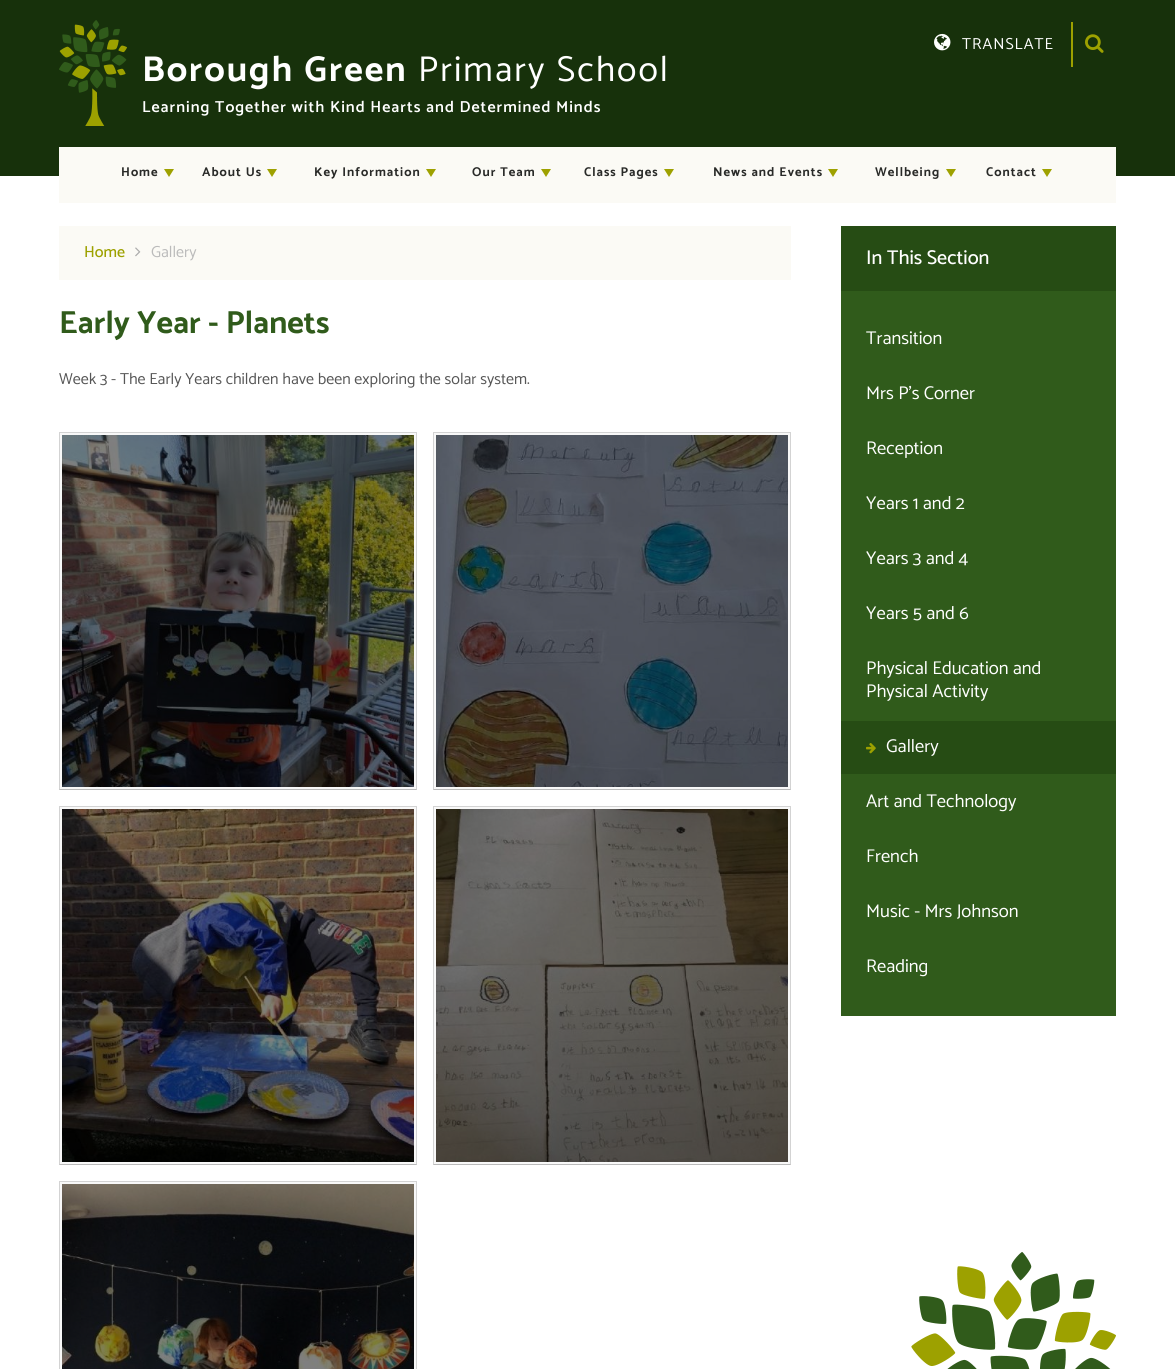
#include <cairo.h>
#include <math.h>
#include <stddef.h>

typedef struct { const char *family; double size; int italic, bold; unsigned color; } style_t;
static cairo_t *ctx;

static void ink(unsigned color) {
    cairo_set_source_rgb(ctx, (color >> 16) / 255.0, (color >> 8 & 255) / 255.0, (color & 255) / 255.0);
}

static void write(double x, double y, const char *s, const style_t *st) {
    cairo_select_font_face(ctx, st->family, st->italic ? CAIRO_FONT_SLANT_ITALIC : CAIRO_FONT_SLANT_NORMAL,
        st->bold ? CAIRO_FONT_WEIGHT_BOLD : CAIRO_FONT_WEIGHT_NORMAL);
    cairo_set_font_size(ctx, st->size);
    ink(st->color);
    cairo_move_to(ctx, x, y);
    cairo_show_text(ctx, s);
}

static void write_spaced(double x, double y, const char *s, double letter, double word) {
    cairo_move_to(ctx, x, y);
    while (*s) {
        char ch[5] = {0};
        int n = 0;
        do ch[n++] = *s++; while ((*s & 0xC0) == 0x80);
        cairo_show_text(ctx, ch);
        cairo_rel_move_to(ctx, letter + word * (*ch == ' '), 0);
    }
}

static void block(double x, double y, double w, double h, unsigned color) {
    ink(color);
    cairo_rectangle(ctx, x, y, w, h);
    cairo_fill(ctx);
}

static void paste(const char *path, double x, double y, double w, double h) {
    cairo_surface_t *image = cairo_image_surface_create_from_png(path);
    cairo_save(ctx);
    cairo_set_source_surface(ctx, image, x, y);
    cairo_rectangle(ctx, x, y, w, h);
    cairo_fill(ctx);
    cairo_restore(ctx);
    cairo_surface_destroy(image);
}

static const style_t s1 = {"Catamaran Medium", 16, 0, 0, 0x9da100};
static const style_t s2 = {"Catamaran", 16, 0, 0, 0xbbbbbb};
static const style_t s3 = {"Catamaran", 32, 0, 1, 0x305b1b};
static const style_t s4 = {"Catamaran", 16, 0, 0, 0x565656};
static const style_t s5 = {"Catamaran Medium", 20, 0, 0, 0xffffff};
static const style_t s6 = {"Catamaran", 18.5, 0, 0, 0xffffff};

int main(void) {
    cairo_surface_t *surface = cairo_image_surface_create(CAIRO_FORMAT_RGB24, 1175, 1369);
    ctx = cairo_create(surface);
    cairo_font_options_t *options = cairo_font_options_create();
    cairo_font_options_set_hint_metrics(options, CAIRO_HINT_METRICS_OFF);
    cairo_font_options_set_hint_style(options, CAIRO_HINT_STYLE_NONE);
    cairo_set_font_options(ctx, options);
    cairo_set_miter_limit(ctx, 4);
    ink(0xffffff);
    cairo_paint(ctx);
    block(0, 0, 1175, 176, 0x17310b);
    block(59, 147, 1057, 56, 0xfbfaf5);
    paste("pic1.png", 934, 33, 17, 18);
    cairo_select_font_face(ctx, "Catamaran", CAIRO_FONT_SLANT_NORMAL, CAIRO_FONT_WEIGHT_NORMAL);
    cairo_set_font_size(ctx, 16);
    ink(0xffffff);
    write_spaced(962, 49, "TRANSLATE", 1, 0);
    block(1071, 22, 2, 45, 0x9da100);
    paste("pic2.png", 1085, 34, 19, 19);
    cairo_select_font_face(ctx, "Catamaran", CAIRO_FONT_SLANT_NORMAL, CAIRO_FONT_WEIGHT_BOLD);
    cairo_set_font_size(ctx, 12.75);
    ink(0x292a28);
    write_spaced(121, 176, "Home", 1, 0);
    ink(0x9ea100);
    cairo_new_path(ctx);
    cairo_move_to(ctx, 164, 169);
    cairo_line_to(ctx, 174, 169);
    cairo_line_to(ctx, 169, 177);
    cairo_close_path(ctx);
    cairo_fill(ctx);
    ink(0x292a28);
    write_spaced(202, 176, "About Us", 1, 0);
    ink(0x9ea100);
    cairo_new_path(ctx);
    cairo_move_to(ctx, 267, 169);
    cairo_line_to(ctx, 277, 169);
    cairo_line_to(ctx, 272, 177);
    cairo_close_path(ctx);
    cairo_fill(ctx);
    ink(0x292a28);
    write_spaced(314, 176, "Key Information", 1, 0);
    ink(0x9ea100);
    cairo_new_path(ctx);
    cairo_move_to(ctx, 426, 169);
    cairo_line_to(ctx, 436, 169);
    cairo_line_to(ctx, 431, 177);
    cairo_close_path(ctx);
    cairo_fill(ctx);
    ink(0x292a28);
    write_spaced(472, 176, "Our Team", 1, 0);
    ink(0x9ea100);
    cairo_new_path(ctx);
    cairo_move_to(ctx, 541, 169);
    cairo_line_to(ctx, 551, 169);
    cairo_line_to(ctx, 546, 177);
    cairo_close_path(ctx);
    cairo_fill(ctx);
    ink(0x292a28);
    write_spaced(584, 176, "Class Pages", 1, 0);
    ink(0x9ea100);
    cairo_new_path(ctx);
    cairo_move_to(ctx, 664, 169);
    cairo_line_to(ctx, 674, 169);
    cairo_line_to(ctx, 669, 177);
    cairo_close_path(ctx);
    cairo_fill(ctx);
    ink(0x292a28);
    write_spaced(713, 176, "News and Events", 1, 0);
    ink(0x9ea100);
    cairo_new_path(ctx);
    cairo_move_to(ctx, 828, 169);
    cairo_line_to(ctx, 838, 169);
    cairo_line_to(ctx, 833, 177);
    cairo_close_path(ctx);
    cairo_fill(ctx);
    ink(0x292a28);
    write_spaced(875, 176, "Wellbeing", 1, 0);
    ink(0x9ea100);
    cairo_new_path(ctx);
    cairo_move_to(ctx, 946, 169);
    cairo_line_to(ctx, 956, 169);
    cairo_line_to(ctx, 951, 177);
    cairo_close_path(ctx);
    cairo_fill(ctx);
    ink(0x292a28);
    write_spaced(986, 176, "Contact", 1, 0);
    ink(0x9ea100);
    cairo_new_path(ctx);
    cairo_move_to(ctx, 1042, 169);
    cairo_line_to(ctx, 1052, 169);
    cairo_line_to(ctx, 1047, 177);
    cairo_close_path(ctx);
    cairo_fill(ctx);
    paste("pic3.png", 59, 20, 68, 106);
    cairo_set_font_size(ctx, 36);
    ink(0xffffff);
    write_spaced(142, 81, "Borough Green", 2, 0);
    cairo_select_font_face(ctx, "Catamaran", CAIRO_FONT_SLANT_NORMAL, CAIRO_FONT_WEIGHT_NORMAL);
    write_spaced(418, 81, "Primary School", 2, 0);
    cairo_select_font_face(ctx, "Catamaran SemiBold", CAIRO_FONT_SLANT_NORMAL, CAIRO_FONT_WEIGHT_NORMAL);
    cairo_set_font_size(ctx, 16);
    write_spaced(142, 112, "Learning Together with Kind Hearts and Determined Minds", 1, 0);
    block(59, 226, 732, 54, 0xfbfaf5);
    write(84, 257, "Home", &s1);
    paste("pic4.png", 135, 247, 6, 10);
    write(151, 257, "Gallery", &s2);
    write(59, 333, "Early Year - Planets", &s3);
    write(59, 384, "Week 3 - The Early Years children have been exploring the solar system.", &s4);
    block(59, 432, 358, 358, 0xf8f8f8);
    ink(0xd3d3d3);
    cairo_new_path(ctx);
    cairo_move_to(ctx, 59, 432);
    cairo_line_to(ctx, 417, 432);
    cairo_line_to(ctx, 416, 433);
    cairo_line_to(ctx, 60, 433);
    cairo_close_path(ctx);
    cairo_fill(ctx);
    cairo_set_source_rgba(ctx, 0, 0, 0, 0.15);
    cairo_new_path(ctx);
    cairo_move_to(ctx, 417, 432);
    cairo_line_to(ctx, 417, 790);
    cairo_line_to(ctx, 416, 789);
    cairo_line_to(ctx, 416, 433);
    cairo_close_path(ctx);
    cairo_fill(ctx);
    cairo_set_source_rgba(ctx, 0, 0, 0, 0.25);
    cairo_new_path(ctx);
    cairo_move_to(ctx, 417, 790);
    cairo_line_to(ctx, 59, 790);
    cairo_line_to(ctx, 60, 789);
    cairo_line_to(ctx, 416, 789);
    cairo_close_path(ctx);
    cairo_fill(ctx);
    cairo_set_source_rgba(ctx, 0, 0, 0, 0.15);
    cairo_new_path(ctx);
    cairo_move_to(ctx, 59, 790);
    cairo_line_to(ctx, 59, 432);
    cairo_line_to(ctx, 60, 433);
    cairo_line_to(ctx, 60, 789);
    cairo_close_path(ctx);
    cairo_fill(ctx);
    block(62, 435, 352, 352, 0x000000);
    paste("pic5.png", 62, 435, 352, 352);
    block(433, 432, 358, 358, 0xf8f8f8);
    ink(0xd3d3d3);
    cairo_new_path(ctx);
    cairo_move_to(ctx, 433, 432);
    cairo_line_to(ctx, 791, 432);
    cairo_line_to(ctx, 790, 433);
    cairo_line_to(ctx, 434, 433);
    cairo_close_path(ctx);
    cairo_fill(ctx);
    cairo_set_source_rgba(ctx, 0, 0, 0, 0.15);
    cairo_new_path(ctx);
    cairo_move_to(ctx, 791, 432);
    cairo_line_to(ctx, 791, 790);
    cairo_line_to(ctx, 790, 789);
    cairo_line_to(ctx, 790, 433);
    cairo_close_path(ctx);
    cairo_fill(ctx);
    cairo_set_source_rgba(ctx, 0, 0, 0, 0.25);
    cairo_new_path(ctx);
    cairo_move_to(ctx, 791, 790);
    cairo_line_to(ctx, 433, 790);
    cairo_line_to(ctx, 434, 789);
    cairo_line_to(ctx, 790, 789);
    cairo_close_path(ctx);
    cairo_fill(ctx);
    cairo_set_source_rgba(ctx, 0, 0, 0, 0.15);
    cairo_new_path(ctx);
    cairo_move_to(ctx, 433, 790);
    cairo_line_to(ctx, 433, 432);
    cairo_line_to(ctx, 434, 433);
    cairo_line_to(ctx, 434, 789);
    cairo_close_path(ctx);
    cairo_fill(ctx);
    block(436, 435, 352, 352, 0x000000);
    paste("pic6.png", 436, 435, 352, 352);
    block(59, 806, 358, 359, 0xf8f8f8);
    ink(0xd3d3d3);
    cairo_new_path(ctx);
    cairo_move_to(ctx, 59, 806);
    cairo_line_to(ctx, 417, 806);
    cairo_line_to(ctx, 416, 807);
    cairo_line_to(ctx, 60, 807);
    cairo_close_path(ctx);
    cairo_fill(ctx);
    cairo_set_source_rgba(ctx, 0, 0, 0, 0.15);
    cairo_new_path(ctx);
    cairo_move_to(ctx, 417, 806);
    cairo_line_to(ctx, 417, 1165);
    cairo_line_to(ctx, 416, 1164);
    cairo_line_to(ctx, 416, 807);
    cairo_close_path(ctx);
    cairo_fill(ctx);
    cairo_set_source_rgba(ctx, 0, 0, 0, 0.25);
    cairo_new_path(ctx);
    cairo_move_to(ctx, 417, 1165);
    cairo_line_to(ctx, 59, 1165);
    cairo_line_to(ctx, 60, 1164);
    cairo_line_to(ctx, 416, 1164);
    cairo_close_path(ctx);
    cairo_fill(ctx);
    cairo_set_source_rgba(ctx, 0, 0, 0, 0.15);
    cairo_new_path(ctx);
    cairo_move_to(ctx, 59, 1165);
    cairo_line_to(ctx, 59, 806);
    cairo_line_to(ctx, 60, 807);
    cairo_line_to(ctx, 60, 1164);
    cairo_close_path(ctx);
    cairo_fill(ctx);
    block(62, 809, 352, 353, 0x000000);
    paste("pic7.png", 62, 809, 352, 353);
    block(433, 806, 358, 359, 0xf8f8f8);
    ink(0xd3d3d3);
    cairo_new_path(ctx);
    cairo_move_to(ctx, 433, 806);
    cairo_line_to(ctx, 791, 806);
    cairo_line_to(ctx, 790, 807);
    cairo_line_to(ctx, 434, 807);
    cairo_close_path(ctx);
    cairo_fill(ctx);
    cairo_set_source_rgba(ctx, 0, 0, 0, 0.15);
    cairo_new_path(ctx);
    cairo_move_to(ctx, 791, 806);
    cairo_line_to(ctx, 791, 1165);
    cairo_line_to(ctx, 790, 1164);
    cairo_line_to(ctx, 790, 807);
    cairo_close_path(ctx);
    cairo_fill(ctx);
    cairo_set_source_rgba(ctx, 0, 0, 0, 0.25);
    cairo_new_path(ctx);
    cairo_move_to(ctx, 791, 1165);
    cairo_line_to(ctx, 433, 1165);
    cairo_line_to(ctx, 434, 1164);
    cairo_line_to(ctx, 790, 1164);
    cairo_close_path(ctx);
    cairo_fill(ctx);
    cairo_set_source_rgba(ctx, 0, 0, 0, 0.15);
    cairo_new_path(ctx);
    cairo_move_to(ctx, 433, 1165);
    cairo_line_to(ctx, 433, 806);
    cairo_line_to(ctx, 434, 807);
    cairo_line_to(ctx, 434, 1164);
    cairo_close_path(ctx);
    cairo_fill(ctx);
    block(436, 809, 352, 353, 0x000000);
    paste("pic8.png", 436, 809, 352, 353);
    block(59, 1181, 358, 188, 0xf8f8f8);
    ink(0xd3d3d3);
    cairo_new_path(ctx);
    cairo_move_to(ctx, 59, 1181);
    cairo_line_to(ctx, 417, 1181);
    cairo_line_to(ctx, 416, 1182);
    cairo_line_to(ctx, 60, 1182);
    cairo_close_path(ctx);
    cairo_fill(ctx);
    cairo_set_source_rgba(ctx, 0, 0, 0, 0.15);
    cairo_new_path(ctx);
    cairo_move_to(ctx, 417, 1181);
    cairo_line_to(ctx, 417, 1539);
    cairo_line_to(ctx, 416, 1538);
    cairo_line_to(ctx, 416, 1182);
    cairo_close_path(ctx);
    cairo_fill(ctx);
    cairo_new_path(ctx);
    cairo_move_to(ctx, 59, 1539);
    cairo_line_to(ctx, 59, 1181);
    cairo_line_to(ctx, 60, 1182);
    cairo_line_to(ctx, 60, 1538);
    cairo_close_path(ctx);
    cairo_fill(ctx);
    block(62, 1184, 352, 185, 0x000000);
    paste("pic9.png", 62, 1184, 352, 185);
    block(841, 226, 275, 65, 0x264c14);
    write(866, 264, "In This Section", &s5);
    block(841, 291, 275, 725, 0x305b1b);
    write(866, 344, "Transition", &s6);
    write(866, 399, "Mrs P's Corner", &s6);
    write(866, 454, "Reception", &s6);
    write(866, 509, "Years 1 and 2", &s6);
    write(866, 564, "Years 3 and 4", &s6);
    write(866, 619, "Years 5 and 6", &s6);
    write(866, 674, "Physical Education and", &s6);
    write(866, 697, "Physical Activity", &s6);
    block(841, 721, 275, 53, 0x264c14);
    paste("pic10.png", 866, 743, 10, 11);
    write(886, 752, "Gallery", &s6);
    write(866, 807, "Art and Technology", &s6);
    write(866, 862, "French", &s6);
    write(866, 917, "Music - Mrs Johnson", &s6);
    write(866, 972, "Reading", &s6);
    paste("pic11.png", 911, 1252, 205, 117);
    cairo_surface_write_to_png(surface, "screenshot.png");
    cairo_font_options_destroy(options);
    cairo_destroy(ctx);
    cairo_surface_destroy(surface);
    return 0;
}
